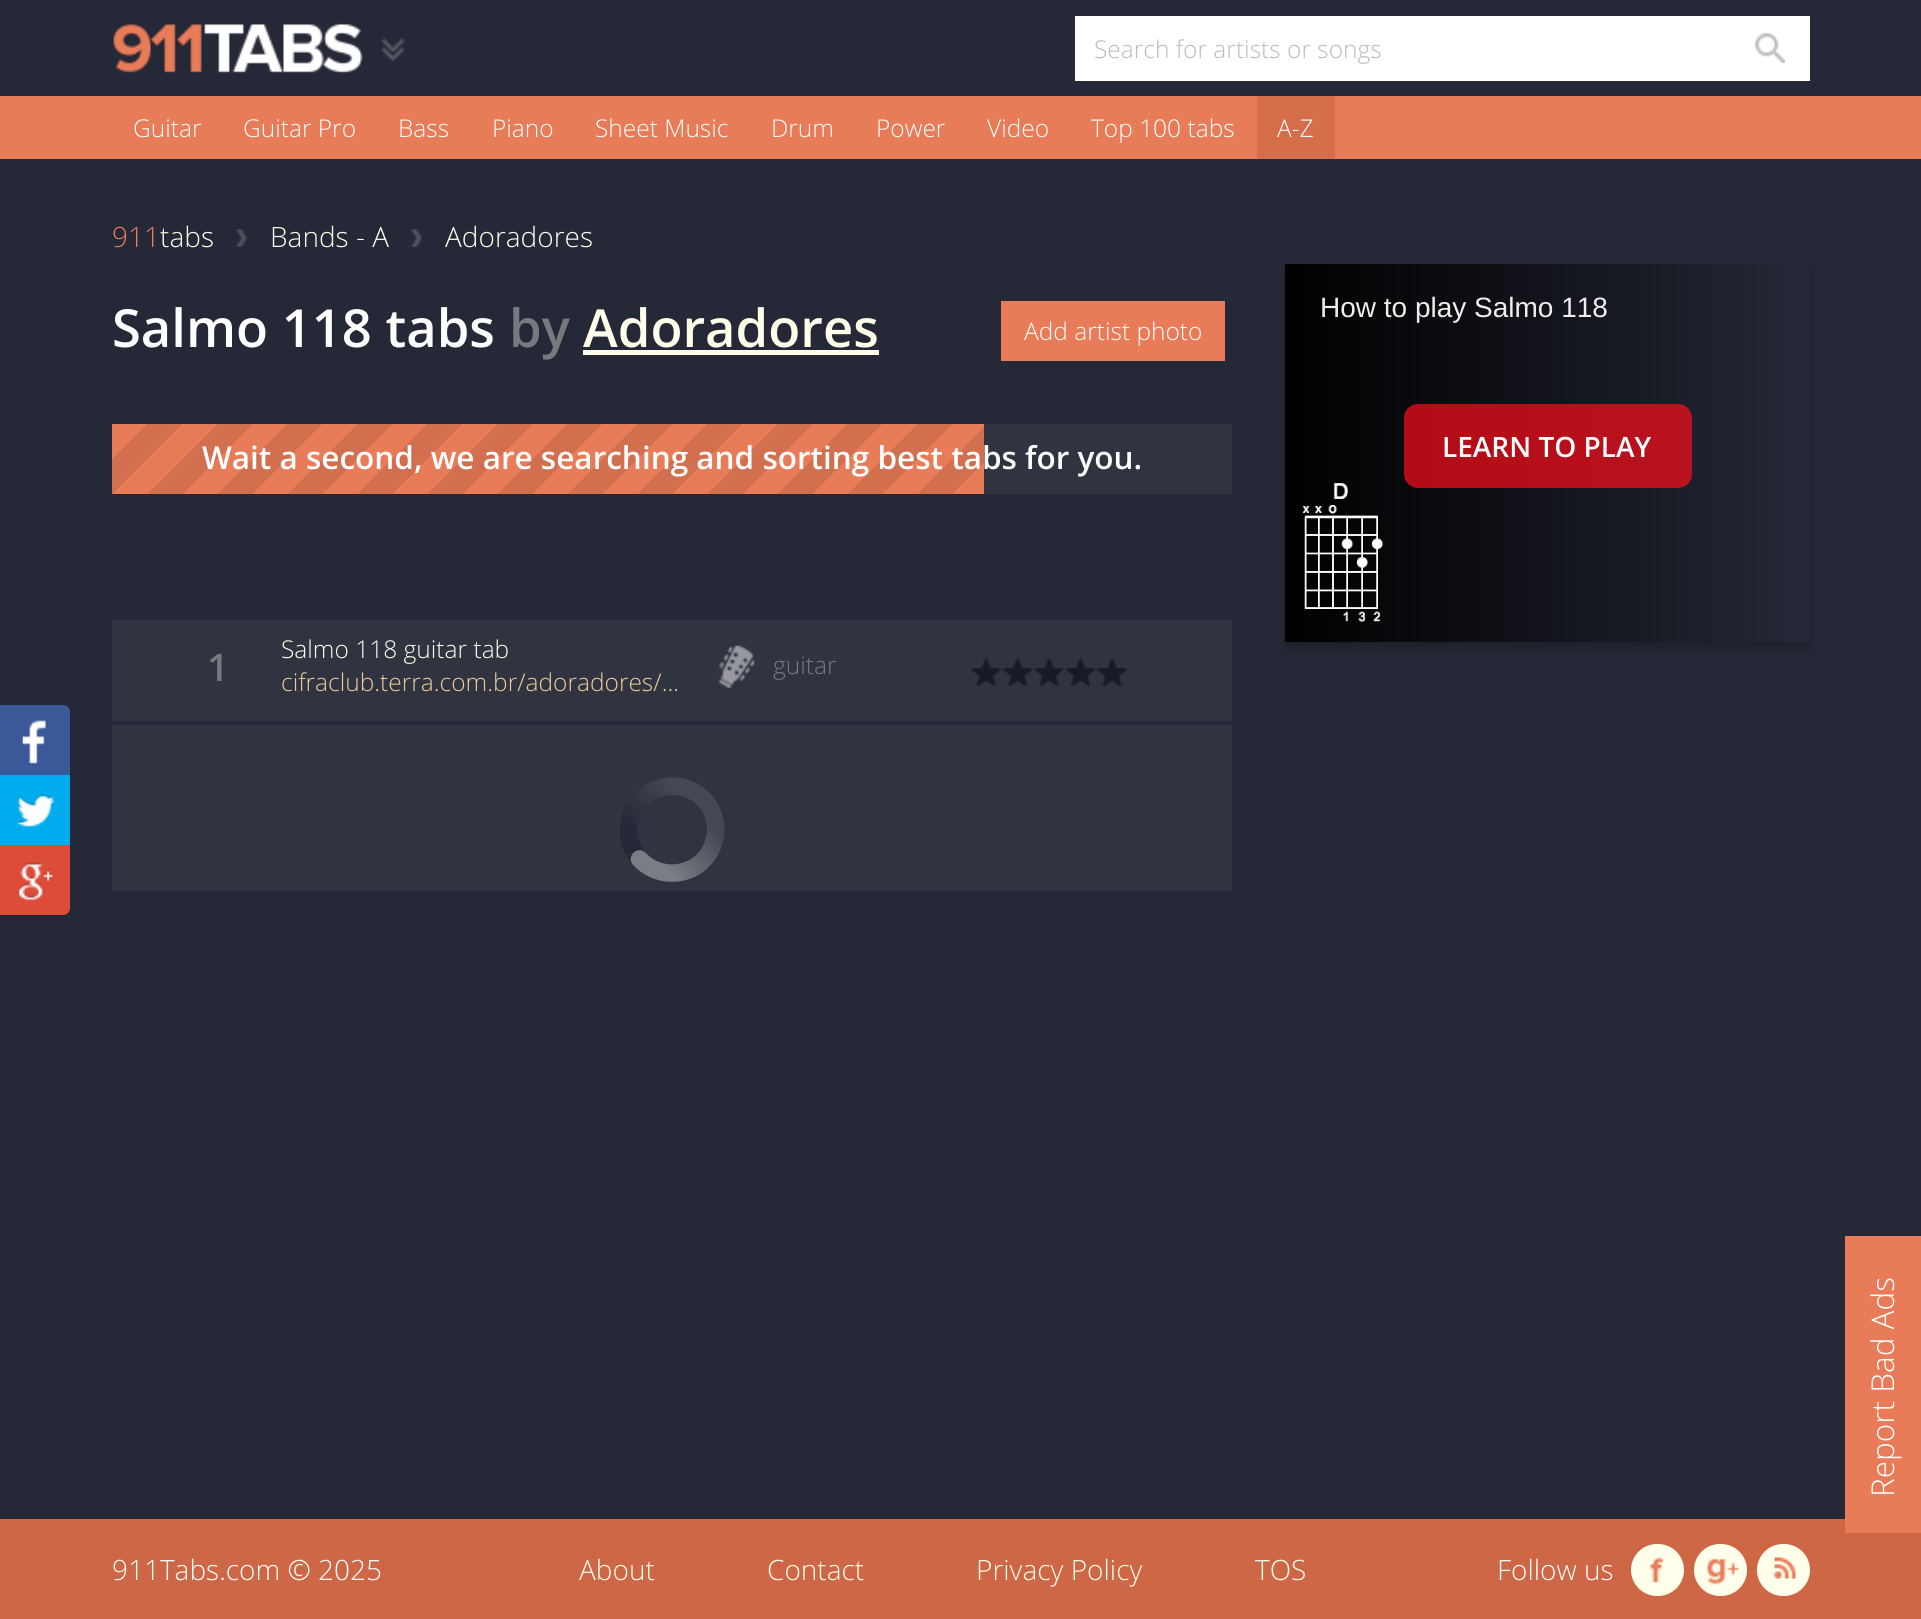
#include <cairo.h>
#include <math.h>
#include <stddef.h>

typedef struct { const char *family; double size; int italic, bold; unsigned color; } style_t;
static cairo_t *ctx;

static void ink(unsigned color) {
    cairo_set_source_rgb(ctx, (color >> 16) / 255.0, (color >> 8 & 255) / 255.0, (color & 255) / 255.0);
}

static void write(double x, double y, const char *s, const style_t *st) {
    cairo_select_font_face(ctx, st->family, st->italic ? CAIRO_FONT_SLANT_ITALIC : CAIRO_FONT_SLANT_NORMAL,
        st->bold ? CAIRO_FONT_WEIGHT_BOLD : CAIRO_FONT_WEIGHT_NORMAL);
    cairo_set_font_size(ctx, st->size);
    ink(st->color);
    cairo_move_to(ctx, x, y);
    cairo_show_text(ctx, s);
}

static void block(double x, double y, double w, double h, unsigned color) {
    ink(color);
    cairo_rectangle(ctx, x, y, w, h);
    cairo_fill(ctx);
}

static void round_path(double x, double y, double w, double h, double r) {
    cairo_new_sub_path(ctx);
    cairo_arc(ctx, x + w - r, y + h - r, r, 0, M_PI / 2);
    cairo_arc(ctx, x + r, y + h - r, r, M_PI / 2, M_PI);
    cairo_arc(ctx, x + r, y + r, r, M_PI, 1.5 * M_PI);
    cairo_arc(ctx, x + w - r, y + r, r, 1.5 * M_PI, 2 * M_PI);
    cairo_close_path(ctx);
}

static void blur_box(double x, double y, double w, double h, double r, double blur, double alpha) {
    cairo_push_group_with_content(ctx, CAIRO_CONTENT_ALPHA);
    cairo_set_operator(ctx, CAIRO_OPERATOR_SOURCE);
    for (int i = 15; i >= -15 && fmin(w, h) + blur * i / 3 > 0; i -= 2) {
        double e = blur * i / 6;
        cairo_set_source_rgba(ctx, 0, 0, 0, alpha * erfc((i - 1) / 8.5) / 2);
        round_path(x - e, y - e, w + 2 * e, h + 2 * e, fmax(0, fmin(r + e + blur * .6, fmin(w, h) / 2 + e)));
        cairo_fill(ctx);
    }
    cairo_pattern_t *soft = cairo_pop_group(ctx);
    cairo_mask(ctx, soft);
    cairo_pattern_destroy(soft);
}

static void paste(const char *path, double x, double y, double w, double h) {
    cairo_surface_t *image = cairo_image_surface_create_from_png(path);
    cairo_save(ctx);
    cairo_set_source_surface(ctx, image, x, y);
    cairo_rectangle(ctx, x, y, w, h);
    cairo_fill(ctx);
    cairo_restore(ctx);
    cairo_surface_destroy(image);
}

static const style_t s1 = {"Open Sans Light", 24.5, 0, 0, 0xbbbbbb};
static const style_t s2 = {"Open Sans Light", 24.5, 0, 0, 0xffffff};
static const style_t s3 = {"Open Sans Light", 28, 0, 0, 0xe87b58};
static const style_t s4 = {"Open Sans Light", 28, 0, 0, 0xffffeb};
static const style_t s5 = {"Open Sans SemiBold", 52.5, 0, 0, 0xffffff};
static const style_t s6 = {"Open Sans SemiBold", 52.5, 0, 0, 0x77797f};
static const style_t s7 = {"Open Sans SemiBold", 52.5, 0, 0, 0xffffeb};
static const style_t s8 = {"Open Sans SemiBold", 31.5, 0, 0, 0xffffff};
static const style_t s9 = {"Open Sans SemiBold", 38, 0, 0, 0x77797f};
static const style_t s10 = {"Open Sans Light", 24.5, 0, 0, 0xffffeb};
static const style_t s11 = {"Open Sans Light", 24.5, 0, 0, 0xeccc99};
static const style_t s12 = {"Open Sans Light", 24.5, 0, 0, 0x77797f};
static const style_t s13 = {"Liberation Sans", 28, 0, 0, 0xeeeeee};
static const style_t s14 = {"Open Sans SemiBold", 28, 0, 0, 0xffffff};
static const style_t s15 = {"Open Sans Light", 28, 0, 0, 0xffffff};
static const style_t s16 = {"Open Sans Light", 31.5, 0, 0, 0xffffff};

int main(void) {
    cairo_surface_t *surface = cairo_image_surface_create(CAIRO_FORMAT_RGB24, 1921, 1619);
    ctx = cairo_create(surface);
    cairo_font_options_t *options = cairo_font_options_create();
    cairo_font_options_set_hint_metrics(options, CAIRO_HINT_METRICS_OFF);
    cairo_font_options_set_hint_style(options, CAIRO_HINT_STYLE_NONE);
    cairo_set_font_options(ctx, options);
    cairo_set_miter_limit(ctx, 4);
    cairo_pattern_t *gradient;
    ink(0x252836);
    cairo_paint(ctx);
    paste("pic1.png", 113, 23, 250, 51);
    paste("pic2.png", 381, 38, 24, 24);
    block(1075, 16, 735, 65, 0xffffff);
    write(1094, 58, "Search for artists or songs", &s1);
    paste("pic3.png", 1755, 33, 30, 30);
    block(0, 96, 1921, 63, 0xe87b58);
    write(133, 137, "Guitar", &s2);
    write(243, 137, "Guitar Pro", &s2);
    write(398, 137, "Bass", &s2);
    write(492, 137, "Piano", &s2);
    write(595, 137, "Sheet Music", &s2);
    write(771, 137, "Drum", &s2);
    write(876, 137, "Power", &s2);
    write(987, 137, "Video", &s2);
    write(1091, 137, "Top 100 tabs", &s2);
    block(1257, 96, 78, 63, 0xd66d4b);
    write(1277, 137, "A-Z", &s2);
    write(112, 247, "911", &s3);
    write(160, 247, "tabs", &s4);
    paste("pic4.png", 236, 229, 11, 18);
    write(270, 247, "Bands - A", &s4);
    paste("pic4.png", 411, 229, 11, 18);
    write(445, 247, "Adoradores", &s4);
    write(112, 347, "Salmo 118 tabs", &s5);
    write(509, 347, "by", &s6);
    write(583, 347, "Adoradores", &s7);
    block(583, 350, 296, 5, 0xffffeb);
    block(1001, 301, 224, 60, 0xe87b58);
    write(1024, 340, "Add artist photo", &s2);
    block(984, 424, 248, 70, 0x303340);
    gradient = cairo_pattern_create_linear(182, 494, 112, 424);
    cairo_pattern_add_color_stop_rgba(gradient, 0.25, 0.82, 0.435, 0.31, 1);
    cairo_pattern_add_color_stop_rgba(gradient, 0.25, 0.91, 0.482, 0.345, 1);
    cairo_pattern_add_color_stop_rgba(gradient, 0.5, 0.91, 0.482, 0.345, 1);
    cairo_pattern_add_color_stop_rgba(gradient, 0.5, 0.82, 0.435, 0.31, 1);
    cairo_pattern_add_color_stop_rgba(gradient, 0.75, 0.82, 0.435, 0.31, 1);
    cairo_pattern_add_color_stop_rgba(gradient, 0.75, 0.91, 0.482, 0.345, 1);
    cairo_pattern_add_color_stop_rgba(gradient, 1, 0.91, 0.482, 0.345, 1);
    cairo_set_source(ctx, gradient);
    cairo_pattern_destroy(gradient);
    cairo_rectangle(ctx, 112, 424, 70, 70);
    cairo_fill(ctx);
    gradient = cairo_pattern_create_linear(252, 494, 182, 424);
    cairo_pattern_add_color_stop_rgba(gradient, 0.25, 0.82, 0.435, 0.31, 1);
    cairo_pattern_add_color_stop_rgba(gradient, 0.25, 0.91, 0.482, 0.345, 1);
    cairo_pattern_add_color_stop_rgba(gradient, 0.5, 0.91, 0.482, 0.345, 1);
    cairo_pattern_add_color_stop_rgba(gradient, 0.5, 0.82, 0.435, 0.31, 1);
    cairo_pattern_add_color_stop_rgba(gradient, 0.75, 0.82, 0.435, 0.31, 1);
    cairo_pattern_add_color_stop_rgba(gradient, 0.75, 0.91, 0.482, 0.345, 1);
    cairo_pattern_add_color_stop_rgba(gradient, 1, 0.91, 0.482, 0.345, 1);
    cairo_set_source(ctx, gradient);
    cairo_pattern_destroy(gradient);
    cairo_rectangle(ctx, 182, 424, 70, 70);
    cairo_fill(ctx);
    gradient = cairo_pattern_create_linear(322, 494, 252, 424);
    cairo_pattern_add_color_stop_rgba(gradient, 0.25, 0.82, 0.435, 0.31, 1);
    cairo_pattern_add_color_stop_rgba(gradient, 0.25, 0.91, 0.482, 0.345, 1);
    cairo_pattern_add_color_stop_rgba(gradient, 0.5, 0.91, 0.482, 0.345, 1);
    cairo_pattern_add_color_stop_rgba(gradient, 0.5, 0.82, 0.435, 0.31, 1);
    cairo_pattern_add_color_stop_rgba(gradient, 0.75, 0.82, 0.435, 0.31, 1);
    cairo_pattern_add_color_stop_rgba(gradient, 0.75, 0.91, 0.482, 0.345, 1);
    cairo_pattern_add_color_stop_rgba(gradient, 1, 0.91, 0.482, 0.345, 1);
    cairo_set_source(ctx, gradient);
    cairo_pattern_destroy(gradient);
    cairo_rectangle(ctx, 252, 424, 70, 70);
    cairo_fill(ctx);
    gradient = cairo_pattern_create_linear(392, 494, 322, 424);
    cairo_pattern_add_color_stop_rgba(gradient, 0.25, 0.82, 0.435, 0.31, 1);
    cairo_pattern_add_color_stop_rgba(gradient, 0.25, 0.91, 0.482, 0.345, 1);
    cairo_pattern_add_color_stop_rgba(gradient, 0.5, 0.91, 0.482, 0.345, 1);
    cairo_pattern_add_color_stop_rgba(gradient, 0.5, 0.82, 0.435, 0.31, 1);
    cairo_pattern_add_color_stop_rgba(gradient, 0.75, 0.82, 0.435, 0.31, 1);
    cairo_pattern_add_color_stop_rgba(gradient, 0.75, 0.91, 0.482, 0.345, 1);
    cairo_pattern_add_color_stop_rgba(gradient, 1, 0.91, 0.482, 0.345, 1);
    cairo_set_source(ctx, gradient);
    cairo_pattern_destroy(gradient);
    cairo_rectangle(ctx, 322, 424, 70, 70);
    cairo_fill(ctx);
    gradient = cairo_pattern_create_linear(462, 494, 392, 424);
    cairo_pattern_add_color_stop_rgba(gradient, 0.25, 0.82, 0.435, 0.31, 1);
    cairo_pattern_add_color_stop_rgba(gradient, 0.25, 0.91, 0.482, 0.345, 1);
    cairo_pattern_add_color_stop_rgba(gradient, 0.5, 0.91, 0.482, 0.345, 1);
    cairo_pattern_add_color_stop_rgba(gradient, 0.5, 0.82, 0.435, 0.31, 1);
    cairo_pattern_add_color_stop_rgba(gradient, 0.75, 0.82, 0.435, 0.31, 1);
    cairo_pattern_add_color_stop_rgba(gradient, 0.75, 0.91, 0.482, 0.345, 1);
    cairo_pattern_add_color_stop_rgba(gradient, 1, 0.91, 0.482, 0.345, 1);
    cairo_set_source(ctx, gradient);
    cairo_pattern_destroy(gradient);
    cairo_rectangle(ctx, 392, 424, 70, 70);
    cairo_fill(ctx);
    gradient = cairo_pattern_create_linear(532, 494, 462, 424);
    cairo_pattern_add_color_stop_rgba(gradient, 0.25, 0.82, 0.435, 0.31, 1);
    cairo_pattern_add_color_stop_rgba(gradient, 0.25, 0.91, 0.482, 0.345, 1);
    cairo_pattern_add_color_stop_rgba(gradient, 0.5, 0.91, 0.482, 0.345, 1);
    cairo_pattern_add_color_stop_rgba(gradient, 0.5, 0.82, 0.435, 0.31, 1);
    cairo_pattern_add_color_stop_rgba(gradient, 0.75, 0.82, 0.435, 0.31, 1);
    cairo_pattern_add_color_stop_rgba(gradient, 0.75, 0.91, 0.482, 0.345, 1);
    cairo_pattern_add_color_stop_rgba(gradient, 1, 0.91, 0.482, 0.345, 1);
    cairo_set_source(ctx, gradient);
    cairo_pattern_destroy(gradient);
    cairo_rectangle(ctx, 462, 424, 70, 70);
    cairo_fill(ctx);
    gradient = cairo_pattern_create_linear(602, 494, 532, 424);
    cairo_pattern_add_color_stop_rgba(gradient, 0.25, 0.82, 0.435, 0.31, 1);
    cairo_pattern_add_color_stop_rgba(gradient, 0.25, 0.91, 0.482, 0.345, 1);
    cairo_pattern_add_color_stop_rgba(gradient, 0.5, 0.91, 0.482, 0.345, 1);
    cairo_pattern_add_color_stop_rgba(gradient, 0.5, 0.82, 0.435, 0.31, 1);
    cairo_pattern_add_color_stop_rgba(gradient, 0.75, 0.82, 0.435, 0.31, 1);
    cairo_pattern_add_color_stop_rgba(gradient, 0.75, 0.91, 0.482, 0.345, 1);
    cairo_pattern_add_color_stop_rgba(gradient, 1, 0.91, 0.482, 0.345, 1);
    cairo_set_source(ctx, gradient);
    cairo_pattern_destroy(gradient);
    cairo_rectangle(ctx, 532, 424, 70, 70);
    cairo_fill(ctx);
    gradient = cairo_pattern_create_linear(672, 494, 602, 424);
    cairo_pattern_add_color_stop_rgba(gradient, 0.25, 0.82, 0.435, 0.31, 1);
    cairo_pattern_add_color_stop_rgba(gradient, 0.25, 0.91, 0.482, 0.345, 1);
    cairo_pattern_add_color_stop_rgba(gradient, 0.5, 0.91, 0.482, 0.345, 1);
    cairo_pattern_add_color_stop_rgba(gradient, 0.5, 0.82, 0.435, 0.31, 1);
    cairo_pattern_add_color_stop_rgba(gradient, 0.75, 0.82, 0.435, 0.31, 1);
    cairo_pattern_add_color_stop_rgba(gradient, 0.75, 0.91, 0.482, 0.345, 1);
    cairo_pattern_add_color_stop_rgba(gradient, 1, 0.91, 0.482, 0.345, 1);
    cairo_set_source(ctx, gradient);
    cairo_pattern_destroy(gradient);
    cairo_rectangle(ctx, 602, 424, 70, 70);
    cairo_fill(ctx);
    gradient = cairo_pattern_create_linear(742, 494, 672, 424);
    cairo_pattern_add_color_stop_rgba(gradient, 0.25, 0.82, 0.435, 0.31, 1);
    cairo_pattern_add_color_stop_rgba(gradient, 0.25, 0.91, 0.482, 0.345, 1);
    cairo_pattern_add_color_stop_rgba(gradient, 0.5, 0.91, 0.482, 0.345, 1);
    cairo_pattern_add_color_stop_rgba(gradient, 0.5, 0.82, 0.435, 0.31, 1);
    cairo_pattern_add_color_stop_rgba(gradient, 0.75, 0.82, 0.435, 0.31, 1);
    cairo_pattern_add_color_stop_rgba(gradient, 0.75, 0.91, 0.482, 0.345, 1);
    cairo_pattern_add_color_stop_rgba(gradient, 1, 0.91, 0.482, 0.345, 1);
    cairo_set_source(ctx, gradient);
    cairo_pattern_destroy(gradient);
    cairo_rectangle(ctx, 672, 424, 70, 70);
    cairo_fill(ctx);
    gradient = cairo_pattern_create_linear(812, 494, 742, 424);
    cairo_pattern_add_color_stop_rgba(gradient, 0.25, 0.82, 0.435, 0.31, 1);
    cairo_pattern_add_color_stop_rgba(gradient, 0.25, 0.91, 0.482, 0.345, 1);
    cairo_pattern_add_color_stop_rgba(gradient, 0.5, 0.91, 0.482, 0.345, 1);
    cairo_pattern_add_color_stop_rgba(gradient, 0.5, 0.82, 0.435, 0.31, 1);
    cairo_pattern_add_color_stop_rgba(gradient, 0.75, 0.82, 0.435, 0.31, 1);
    cairo_pattern_add_color_stop_rgba(gradient, 0.75, 0.91, 0.482, 0.345, 1);
    cairo_pattern_add_color_stop_rgba(gradient, 1, 0.91, 0.482, 0.345, 1);
    cairo_set_source(ctx, gradient);
    cairo_pattern_destroy(gradient);
    cairo_rectangle(ctx, 742, 424, 70, 70);
    cairo_fill(ctx);
    gradient = cairo_pattern_create_linear(882, 494, 812, 424);
    cairo_pattern_add_color_stop_rgba(gradient, 0.25, 0.82, 0.435, 0.31, 1);
    cairo_pattern_add_color_stop_rgba(gradient, 0.25, 0.91, 0.482, 0.345, 1);
    cairo_pattern_add_color_stop_rgba(gradient, 0.5, 0.91, 0.482, 0.345, 1);
    cairo_pattern_add_color_stop_rgba(gradient, 0.5, 0.82, 0.435, 0.31, 1);
    cairo_pattern_add_color_stop_rgba(gradient, 0.75, 0.82, 0.435, 0.31, 1);
    cairo_pattern_add_color_stop_rgba(gradient, 0.75, 0.91, 0.482, 0.345, 1);
    cairo_pattern_add_color_stop_rgba(gradient, 1, 0.91, 0.482, 0.345, 1);
    cairo_set_source(ctx, gradient);
    cairo_pattern_destroy(gradient);
    cairo_rectangle(ctx, 812, 424, 70, 70);
    cairo_fill(ctx);
    gradient = cairo_pattern_create_linear(952, 494, 882, 424);
    cairo_pattern_add_color_stop_rgba(gradient, 0.25, 0.82, 0.435, 0.31, 1);
    cairo_pattern_add_color_stop_rgba(gradient, 0.25, 0.91, 0.482, 0.345, 1);
    cairo_pattern_add_color_stop_rgba(gradient, 0.5, 0.91, 0.482, 0.345, 1);
    cairo_pattern_add_color_stop_rgba(gradient, 0.5, 0.82, 0.435, 0.31, 1);
    cairo_pattern_add_color_stop_rgba(gradient, 0.75, 0.82, 0.435, 0.31, 1);
    cairo_pattern_add_color_stop_rgba(gradient, 0.75, 0.91, 0.482, 0.345, 1);
    cairo_pattern_add_color_stop_rgba(gradient, 1, 0.91, 0.482, 0.345, 1);
    cairo_set_source(ctx, gradient);
    cairo_pattern_destroy(gradient);
    cairo_rectangle(ctx, 882, 424, 70, 70);
    cairo_fill(ctx);
    gradient = cairo_pattern_create_linear(1022, 494, 952, 424);
    cairo_pattern_add_color_stop_rgba(gradient, 0.25, 0.82, 0.435, 0.31, 1);
    cairo_pattern_add_color_stop_rgba(gradient, 0.25, 0.91, 0.482, 0.345, 1);
    cairo_pattern_add_color_stop_rgba(gradient, 0.5, 0.91, 0.482, 0.345, 1);
    cairo_pattern_add_color_stop_rgba(gradient, 0.5, 0.82, 0.435, 0.31, 1);
    cairo_pattern_add_color_stop_rgba(gradient, 0.75, 0.82, 0.435, 0.31, 1);
    cairo_pattern_add_color_stop_rgba(gradient, 0.75, 0.91, 0.482, 0.345, 1);
    cairo_pattern_add_color_stop_rgba(gradient, 1, 0.91, 0.482, 0.345, 1);
    cairo_set_source(ctx, gradient);
    cairo_pattern_destroy(gradient);
    cairo_rectangle(ctx, 952, 424, 32, 70);
    cairo_fill(ctx);
    write(202, 469, "Wait a second, we are searching and sorting best tabs for you.", &s8);
    block(112, 620, 1120, 271, 0x303340);
    block(112, 721, 1120, 4, 0x252836);
    write(207, 681, "1", &s9);
    write(281, 658, "Salmo 118 guitar tab", &s10);
    write(281, 691, "cifraclub.terra.com.br/adoradores/...", &s11);
    paste("pic5.png", 718, 645, 37, 43);
    write(773, 674, "guitar", &s12);
    paste("pic6.png", 971, 658, 30, 28);
    paste("pic7.png", 971, 658, 30, 28);
    paste("pic8.png", 1003, 658, 30, 28);
    paste("pic9.png", 1003, 658, 29, 28);
    paste("pic6.png", 1034, 658, 30, 28);
    paste("pic7.png", 1034, 658, 30, 28);
    paste("pic10.png", 1066, 658, 30, 28);
    paste("pic11.png", 1066, 658, 29, 28);
    paste("pic6.png", 1097, 658, 30, 28);
    paste("pic7.png", 1097, 658, 30, 28);
    cairo_new_path(ctx);
    cairo_move_to(ctx, 704.5, 800);
    cairo_curve_to(ctx, 688, 782.5, 660.5, 781.5, 642.5, 798);
    cairo_curve_to(ctx, 625, 815, 624, 842.5, 640.5, 860);
    gradient = cairo_pattern_create_linear(691, 785, 626, 844);
    cairo_pattern_add_color_stop_rgba(gradient, 0.15, 0.275, 0.282, 0.329, 1);
    cairo_pattern_add_color_stop_rgba(gradient, 0.85, 0.145, 0.157, 0.212, 1);
    cairo_set_source(ctx, gradient);
    cairo_pattern_destroy(gradient);
    cairo_set_line_width(ctx, 17.5);
    cairo_stroke(ctx);
    cairo_new_path(ctx);
    cairo_move_to(ctx, 704.5, 800);
    cairo_curve_to(ctx, 720.5, 818, 719, 846, 701.5, 862);
    cairo_curve_to(ctx, 683.5, 878, 655.5, 876.5, 639.5, 859);
    gradient = cairo_pattern_create_linear(654, 875, 719, 816);
    cairo_pattern_add_color_stop_rgba(gradient, 0.15, 0.482, 0.49, 0.522, 1);
    cairo_pattern_add_color_stop_rgba(gradient, 0.85, 0.275, 0.282, 0.329, 1);
    cairo_set_source(ctx, gradient);
    cairo_pattern_destroy(gradient);
    cairo_set_line_cap(ctx, CAIRO_LINE_CAP_ROUND);
    cairo_stroke(ctx);
    cairo_save(ctx);
    cairo_set_fill_rule(ctx, CAIRO_FILL_RULE_EVEN_ODD);
    cairo_new_path(ctx);
    cairo_move_to(ctx, 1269, 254);
    cairo_line_to(ctx, 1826, 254);
    cairo_line_to(ctx, 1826, 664);
    cairo_line_to(ctx, 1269, 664);
    cairo_close_path(ctx);
    cairo_move_to(ctx, 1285, 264);
    cairo_line_to(ctx, 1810, 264);
    cairo_line_to(ctx, 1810, 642);
    cairo_line_to(ctx, 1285, 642);
    cairo_close_path(ctx);
    cairo_clip(ctx);
    ink(0x000000);
    blur_box(1285, 270, 525, 378, 0, 5, 0.23);
    cairo_restore(ctx);
    gradient = cairo_pattern_create_linear(1285, 453, 1810, 453);
    cairo_pattern_add_color_stop_rgba(gradient, 0, 0, 0, 0, 1);
    cairo_pattern_add_color_stop_rgba(gradient, 1, 0, 0, 0, 0);
    cairo_set_source(ctx, gradient);
    cairo_pattern_destroy(gradient);
    cairo_rectangle(ctx, 1285, 264, 499, 378);
    cairo_fill(ctx);
    write(1320, 317, "How to play Salmo 118", &s13);
    cairo_set_source_rgba(ctx, 0.988, 0.051, 0.106, 0.7);
    round_path(1404, 404, 288, 84, 14);
    cairo_fill(ctx);
    write(1442, 457, "LEARN TO PLAY", &s14);
    paste("pic12.png", 1303, 483, 80, 140);
    ink(0x3b5998);
    cairo_new_path(ctx);
    cairo_move_to(ctx, 0, 705);
    cairo_line_to(ctx, 63, 705);
    cairo_curve_to(ctx, 67, 705, 70, 708, 70, 712);
    cairo_line_to(ctx, 70, 775);
    cairo_line_to(ctx, 0, 775);
    cairo_close_path(ctx);
    cairo_fill(ctx);
    paste("pic13.png", 22, 720, 24, 44);
    block(0, 775, 70, 70, 0x00acee);
    paste("pic14.png", 17, 794, 38, 33);
    ink(0xdd4b39);
    cairo_new_path(ctx);
    cairo_move_to(ctx, 0, 845);
    cairo_line_to(ctx, 70, 845);
    cairo_line_to(ctx, 70, 908);
    cairo_curve_to(ctx, 70, 912, 67, 915, 63, 915);
    cairo_line_to(ctx, 0, 915);
    cairo_close_path(ctx);
    cairo_fill(ctx);
    paste("pic15.png", 19, 862, 34, 39);
    block(0, 1519, 1921, 100, 0xce6746);
    write(112, 1580, "911Tabs.com © 2025", &s15);
    write(579, 1580, "About", &s4);
    write(767, 1580, "Contact", &s4);
    write(976, 1580, "Privacy Policy", &s4);
    write(1255, 1580, "TOS", &s4);
    write(1497, 1580, "Follow us", &s15);
    ink(0xffffeb);
    round_path(1631, 1544, 53, 52, 26);
    cairo_fill(ctx);
    paste("pic16.png", 1649, 1557, 16, 26);
    round_path(1694, 1544, 53, 52, 26);
    cairo_fill(ctx);
    paste("pic17.png", 1706, 1558, 34, 27);
    round_path(1757, 1544, 53, 52, 26);
    cairo_fill(ctx);
    paste("pic18.png", 1774, 1557, 22, 22);
    block(1845, 1236, 76, 297, 0xe87b58);
    cairo_save(ctx);
    cairo_translate(ctx, 1894, 1497);
    cairo_rotate(ctx, -90 * M_PI / 180);
    write(0, 0, "Report Bad Ads", &s16);
    cairo_restore(ctx);
    cairo_surface_write_to_png(surface, "screenshot.png");
    cairo_font_options_destroy(options);
    cairo_destroy(ctx);
    cairo_surface_destroy(surface);
    return 0;
}
